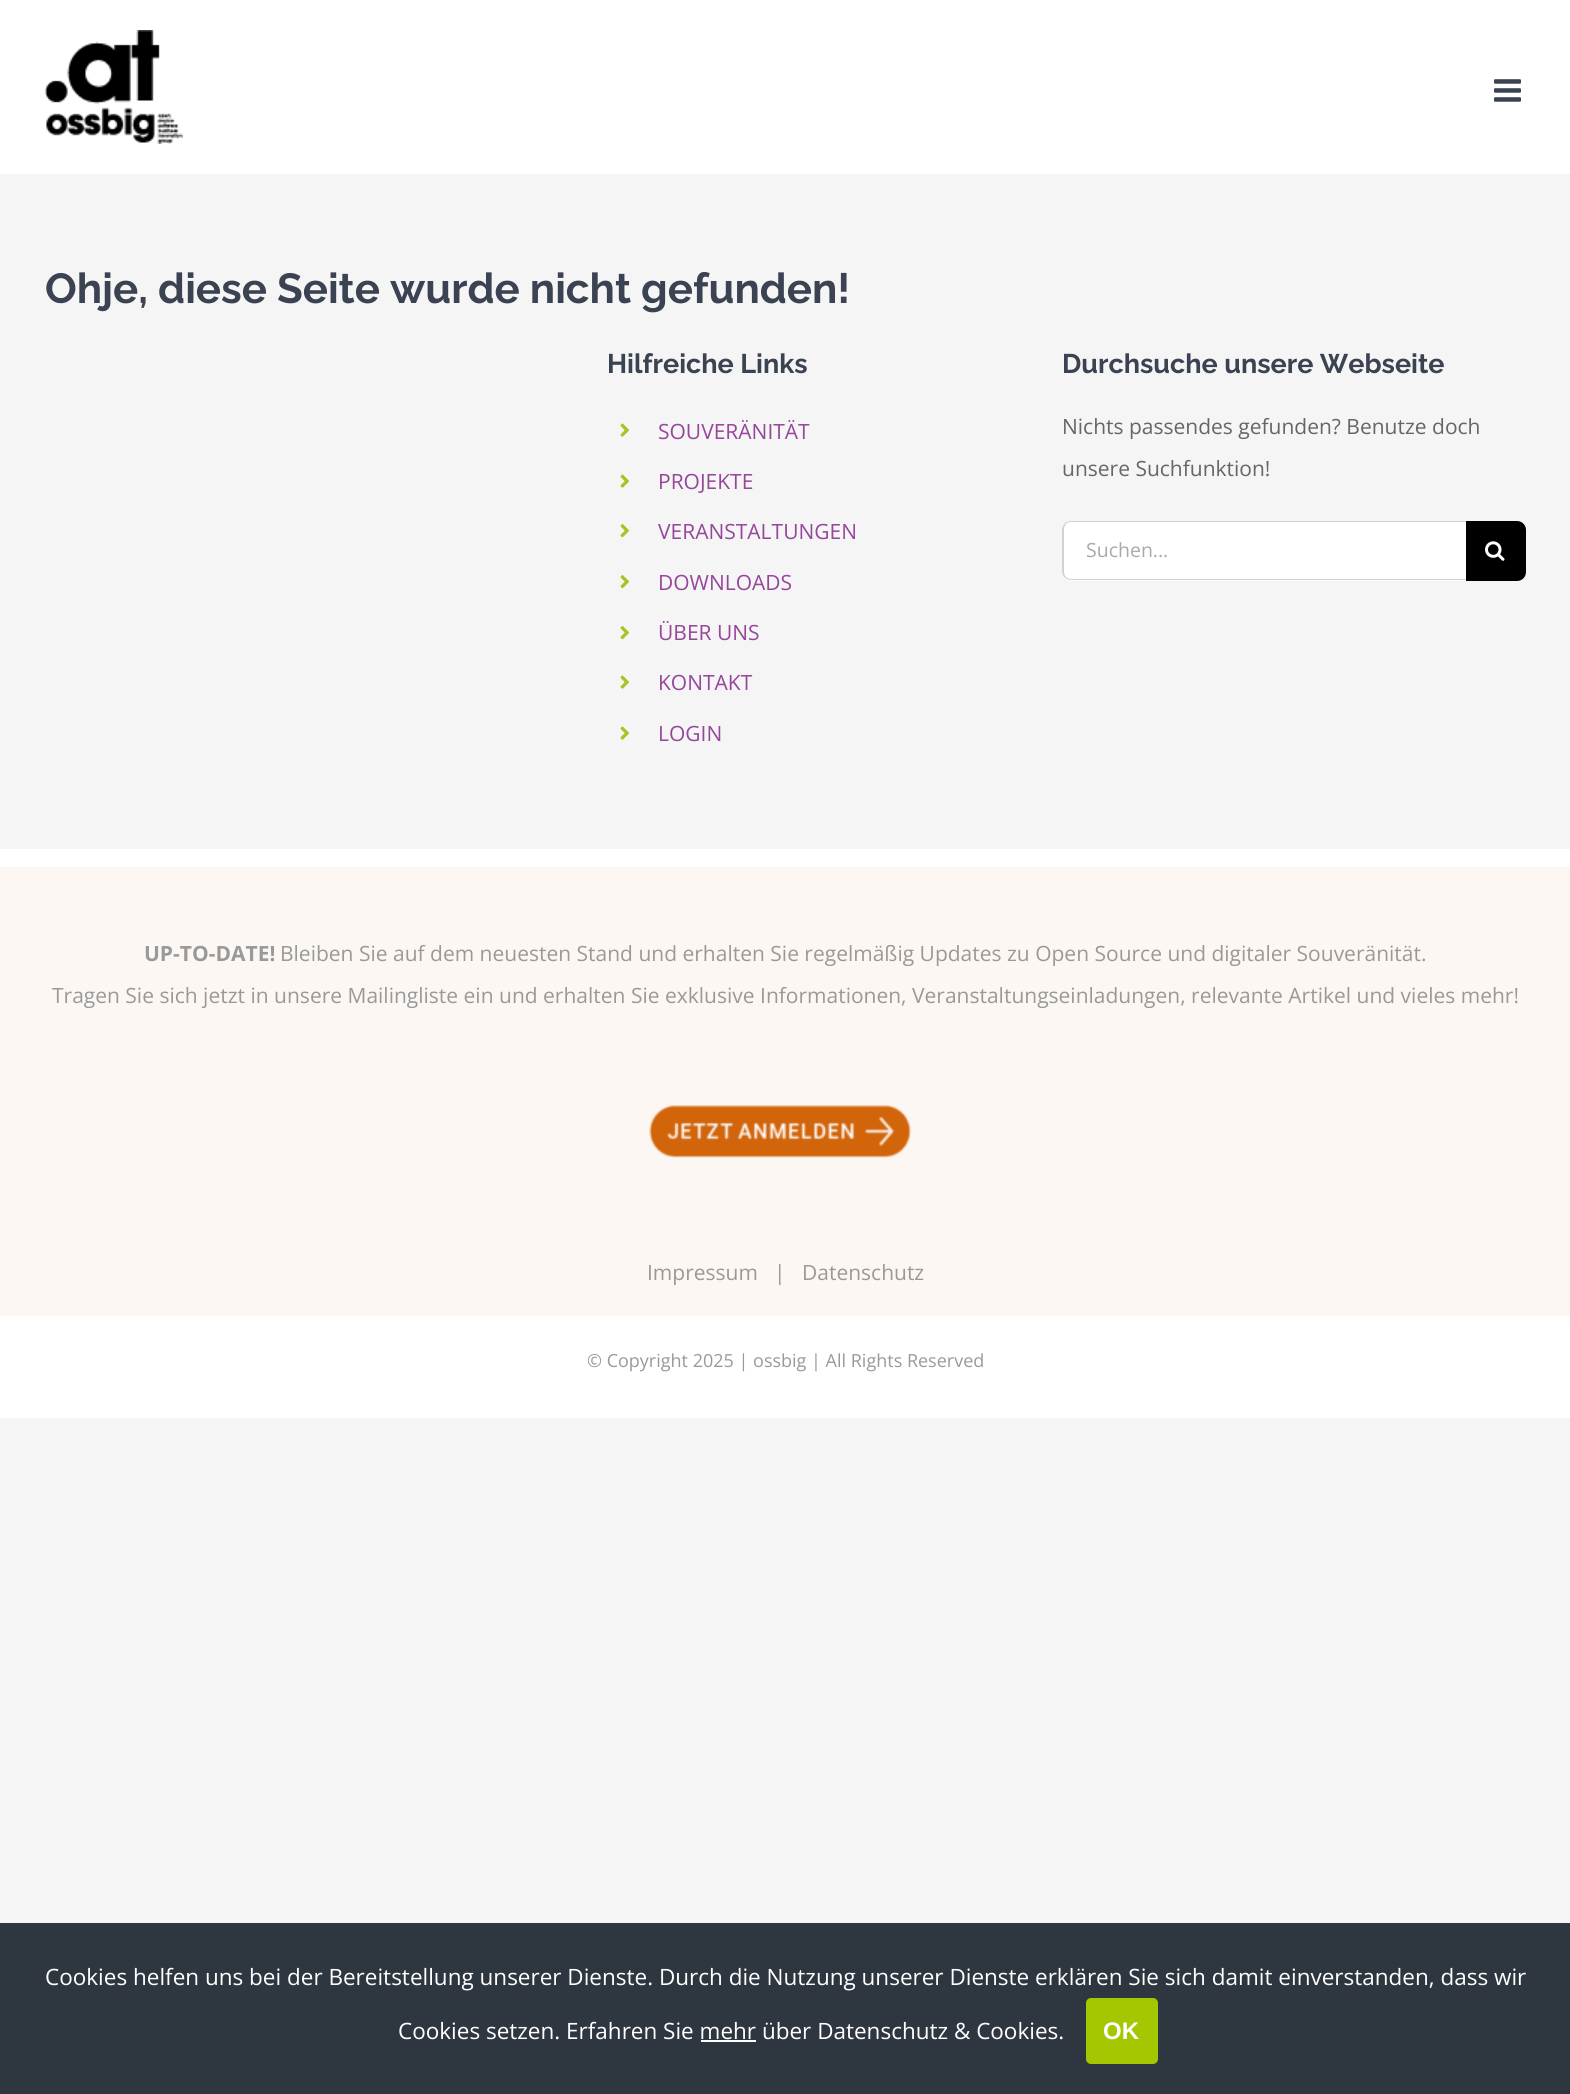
#include <cairo.h>
#include <math.h>
#include <stddef.h>

typedef struct { const char *family; double size; int italic, bold; unsigned color; } style_t;
static cairo_t *ctx;

static void ink(unsigned color) {
    cairo_set_source_rgb(ctx, (color >> 16) / 255.0, (color >> 8 & 255) / 255.0, (color & 255) / 255.0);
}

static void write(double x, double y, const char *s, const style_t *st) {
    cairo_select_font_face(ctx, st->family, st->italic ? CAIRO_FONT_SLANT_ITALIC : CAIRO_FONT_SLANT_NORMAL,
        st->bold ? CAIRO_FONT_WEIGHT_BOLD : CAIRO_FONT_WEIGHT_NORMAL);
    cairo_set_font_size(ctx, st->size);
    ink(st->color);
    cairo_move_to(ctx, x, y);
    cairo_show_text(ctx, s);
}

static void block(double x, double y, double w, double h, unsigned color) {
    ink(color);
    cairo_rectangle(ctx, x, y, w, h);
    cairo_fill(ctx);
}

static void round_path(double x, double y, double w, double h, double r) {
    cairo_new_sub_path(ctx);
    cairo_arc(ctx, x + w - r, y + h - r, r, 0, M_PI / 2);
    cairo_arc(ctx, x + r, y + h - r, r, M_PI / 2, M_PI);
    cairo_arc(ctx, x + r, y + r, r, M_PI, 1.5 * M_PI);
    cairo_arc(ctx, x + w - r, y + r, r, 1.5 * M_PI, 2 * M_PI);
    cairo_close_path(ctx);
}

static void paste(const char *path, double x, double y, double w, double h) {
    cairo_surface_t *image = cairo_image_surface_create_from_png(path);
    cairo_save(ctx);
    cairo_set_source_surface(ctx, image, x, y);
    cairo_rectangle(ctx, x, y, w, h);
    cairo_fill(ctx);
    cairo_restore(ctx);
    cairo_surface_destroy(image);
}

static const style_t s1 = {"Raleway Thin", 42, 0, 0, 0x3b4251};
static const style_t s2 = {"Raleway Thin", 27, 0, 0, 0x3b4251};
static const style_t s3 = {"Open Sans", 21, 0, 0, 0x96469b};
static const style_t s4 = {"Open Sans", 21, 0, 0, 0x666666};
static const style_t s5 = {"Open Sans", 19.5, 0, 0, 0xaaa9a9};
static const style_t s6 = {"Open Sans", 21, 0, 1, 0x999999};
static const style_t s7 = {"Open Sans", 21, 0, 0, 0x999999};
static const style_t s8 = {"Open Sans", 18, 0, 0, 0x999999};
static const style_t s9 = {"Open Sans", 22.5, 0, 0, 0xffffff};
static const style_t s10 = {"Liberation Sans", 24, 0, 1, 0xffffff};

int main(void) {
    cairo_surface_t *surface = cairo_image_surface_create(CAIRO_FORMAT_RGB24, 1570, 2094);
    ctx = cairo_create(surface);
    cairo_font_options_t *options = cairo_font_options_create();
    cairo_font_options_set_hint_metrics(options, CAIRO_HINT_METRICS_OFF);
    cairo_font_options_set_hint_style(options, CAIRO_HINT_STYLE_NONE);
    cairo_set_font_options(ctx, options);
    cairo_set_miter_limit(ctx, 4);
    ink(0xf5f5f5);
    cairo_paint(ctx);
    block(0, 0, 1570, 174, 0xffffff);
    paste("pic1.png", 45, 30, 138, 114);
    paste("pic2.png", 1494, 79, 27, 23);
    write(45, 303, "Ohje, diese Seite wurde nicht gefunden!", &s1);
    write(607, 373, "Hilfreiche Links", &s2);
    paste("pic3.png", 620, 423, 9, 14);
    write(658, 439, "SOUVERÄNITÄT", &s3);
    paste("pic3.png", 620, 474, 9, 14);
    write(658, 489, "PROJEKTE", &s3);
    paste("pic4.png", 620, 524, 9, 14);
    write(658, 539, "VERANSTALTUNGEN", &s3);
    paste("pic4.png", 620, 575, 9, 14);
    write(658, 590, "DOWNLOADS", &s3);
    paste("pic4.png", 620, 626, 9, 14);
    write(658, 640, "ÜBER UNS", &s3);
    paste("pic3.png", 620, 675, 9, 14);
    write(658, 690, "KONTAKT", &s3);
    paste("pic3.png", 620, 726, 9, 14);
    write(658, 741, "LOGIN", &s3);
    write(1062, 373, "Durchsuche unsere Webseite", &s2);
    write(1062, 434, "Nichts passendes gefunden? Benutze doch", &s4);
    write(1062, 476, "unsere Suchfunktion!", &s4);
    ink(0xffffff);
    cairo_new_path(ctx);
    cairo_move_to(ctx, 1071, 521);
    cairo_line_to(ctx, 1466, 521);
    cairo_line_to(ctx, 1466, 581);
    cairo_line_to(ctx, 1071, 581);
    cairo_curve_to(ctx, 1066, 581, 1062, 577, 1062, 572);
    cairo_line_to(ctx, 1062, 530);
    cairo_curve_to(ctx, 1062, 525, 1066, 521, 1071, 521);
    cairo_close_path(ctx);
    cairo_fill(ctx);
    ink(0xd2d2d2);
    cairo_new_path(ctx);
    cairo_move_to(ctx, 1071, 522);
    cairo_line_to(ctx, 1466, 522);
    cairo_line_to(ctx, 1466, 521);
    cairo_line_to(ctx, 1071, 521);
    cairo_curve_to(ctx, 1066, 521, 1062, 525, 1062, 530);
    cairo_line_to(ctx, 1062, 572);
    cairo_curve_to(ctx, 1062, 576, 1066, 580, 1071, 580);
    cairo_line_to(ctx, 1466, 580);
    cairo_line_to(ctx, 1466, 579);
    cairo_line_to(ctx, 1071, 579);
    cairo_curve_to(ctx, 1067, 579, 1064, 576, 1064, 572);
    cairo_line_to(ctx, 1064, 530);
    cairo_curve_to(ctx, 1064, 525, 1067, 522, 1071, 522);
    cairo_close_path(ctx);
    cairo_fill(ctx);
    write(1086, 557, "Suchen...", &s5);
    ink(0x000000);
    cairo_new_path(ctx);
    cairo_move_to(ctx, 1466, 521);
    cairo_line_to(ctx, 1517, 521);
    cairo_curve_to(ctx, 1522, 521, 1526, 525, 1526, 530);
    cairo_line_to(ctx, 1526, 572);
    cairo_curve_to(ctx, 1526, 577, 1522, 581, 1517, 581);
    cairo_line_to(ctx, 1466, 581);
    cairo_close_path(ctx);
    cairo_fill(ctx);
    paste("pic5.png", 1485, 541, 20, 20);
    block(0, 867, 1570, 449, 0xfcf7f3);
    block(0, 849, 1570, 18, 0xffffff);
    write(144, 961, "UP-TO-DATE!", &s6);
    write(280, 961, "Bleiben Sie auf dem neuesten Stand und erhalten Sie regelmäßig Updates zu Open Source und digitaler Souveränität.", &s7);
    write(52, 1003, "Tragen Sie sich jetzt in unsere Mailingliste ein und erhalten Sie exklusive Informationen, Veranstaltungseinladungen, relevante Artikel und vieles mehr!", &s7);
    paste("pic6.png", 649, 1105, 262, 53);
    write(647, 1280, "Impressum", &s7);
    write(774, 1280, "|", &s7);
    write(802, 1280, "Datenschutz", &s7);
    block(0, 1316, 1570, 102, 0xffffff);
    write(587, 1367, "© Copyright 2025 | ossbig | All Rights Reserved", &s8);
    block(0, 1923, 1570, 171, 0x2e363f);
    write(45, 1985, "Cookies helfen uns bei der Bereitstellung unserer Dienste. Durch die Nutzung unserer Dienste erklären Sie sich damit einverstanden, dass wir", &s9);
    write(398, 2039, "Cookies setzen. Erfahren Sie mehr über Datenschutz & Cookies.", &s9);
    ink(0xa3c700);
    round_path(1086, 1998, 72, 66, 5);
    cairo_fill(ctx);
    write(1103, 2039, "OK", &s10);
    block(701, 2040, 55, 2, 0xffffff);
    cairo_surface_write_to_png(surface, "screenshot.png");
    cairo_font_options_destroy(options);
    cairo_destroy(ctx);
    cairo_surface_destroy(surface);
    return 0;
}
